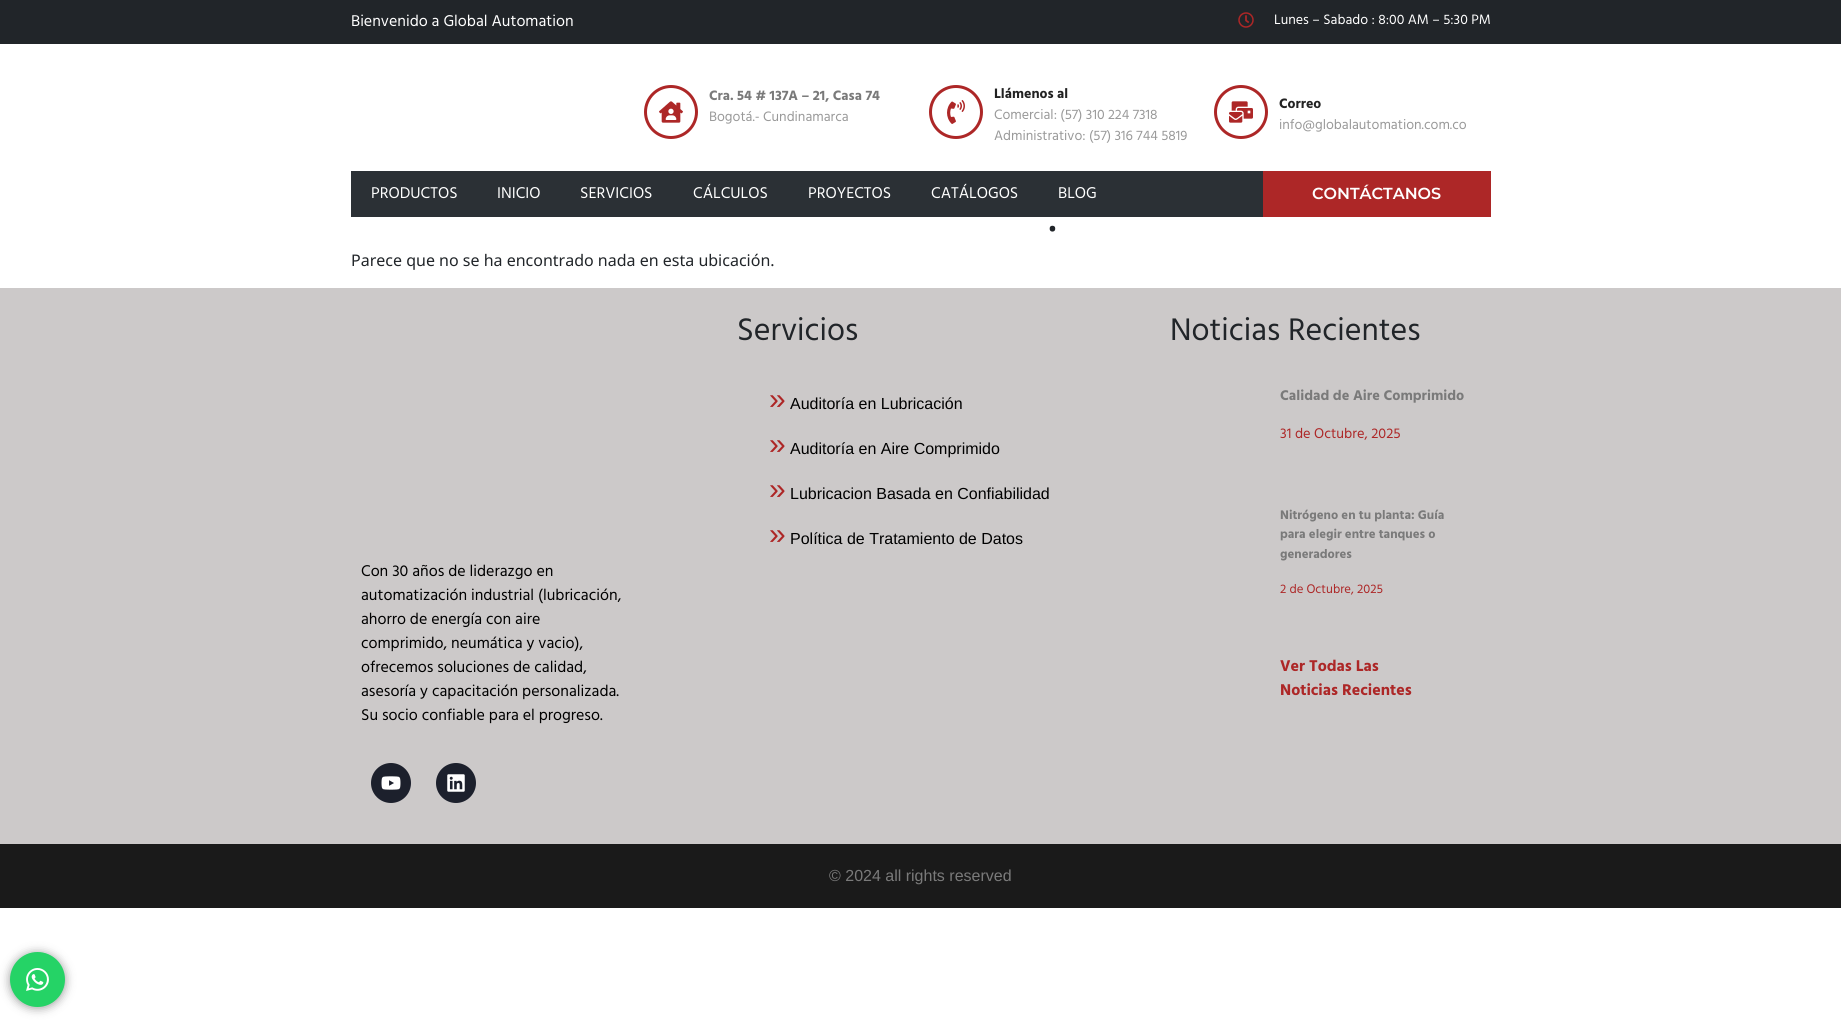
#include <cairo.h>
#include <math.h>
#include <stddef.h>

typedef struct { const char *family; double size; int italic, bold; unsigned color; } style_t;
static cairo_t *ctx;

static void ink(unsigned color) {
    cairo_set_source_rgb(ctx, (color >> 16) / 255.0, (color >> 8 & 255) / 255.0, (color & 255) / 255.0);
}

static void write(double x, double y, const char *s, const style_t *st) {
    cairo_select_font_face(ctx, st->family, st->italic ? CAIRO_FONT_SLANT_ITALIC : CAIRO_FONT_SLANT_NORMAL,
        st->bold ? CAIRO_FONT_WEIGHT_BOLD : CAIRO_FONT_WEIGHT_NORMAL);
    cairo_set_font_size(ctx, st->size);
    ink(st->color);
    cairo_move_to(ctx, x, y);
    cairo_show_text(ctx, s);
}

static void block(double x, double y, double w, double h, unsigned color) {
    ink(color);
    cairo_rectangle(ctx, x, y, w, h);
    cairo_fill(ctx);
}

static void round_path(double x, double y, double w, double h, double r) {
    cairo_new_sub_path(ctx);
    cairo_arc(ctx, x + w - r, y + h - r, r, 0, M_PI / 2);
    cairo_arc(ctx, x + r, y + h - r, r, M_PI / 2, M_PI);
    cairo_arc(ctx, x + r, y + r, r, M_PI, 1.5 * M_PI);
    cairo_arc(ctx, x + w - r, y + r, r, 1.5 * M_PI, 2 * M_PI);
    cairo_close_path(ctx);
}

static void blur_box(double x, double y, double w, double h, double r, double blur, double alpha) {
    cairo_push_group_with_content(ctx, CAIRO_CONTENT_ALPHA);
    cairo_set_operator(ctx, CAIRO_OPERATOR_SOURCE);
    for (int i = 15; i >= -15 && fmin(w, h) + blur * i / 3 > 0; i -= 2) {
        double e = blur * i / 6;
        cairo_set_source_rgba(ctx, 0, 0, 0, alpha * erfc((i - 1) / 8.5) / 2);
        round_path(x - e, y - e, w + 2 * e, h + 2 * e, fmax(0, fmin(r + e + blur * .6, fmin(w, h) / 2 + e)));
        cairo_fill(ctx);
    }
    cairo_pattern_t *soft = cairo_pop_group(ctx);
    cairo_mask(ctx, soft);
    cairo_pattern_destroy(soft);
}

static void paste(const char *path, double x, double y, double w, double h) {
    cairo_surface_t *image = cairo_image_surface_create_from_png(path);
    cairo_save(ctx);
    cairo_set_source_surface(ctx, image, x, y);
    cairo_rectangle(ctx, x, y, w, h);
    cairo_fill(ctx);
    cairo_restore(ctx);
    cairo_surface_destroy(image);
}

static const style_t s1 = {"Hind", 16, 0, 0, 0xffffff};
static const style_t s2 = {"Hind", 14, 0, 0, 0xffffff};
static const style_t s3 = {"Hind", 14, 0, 1, 0x7a7a7a};
static const style_t s4 = {"Hind", 14, 0, 0, 0x999999};
static const style_t s5 = {"Hind", 14, 0, 1, 0x222222};
static const style_t s6 = {"Montserrat SemiBold", 16, 0, 0, 0xffffff};
static const style_t s7 = {"Noto Sans Medium", 40, 0, 0, 0x212529};
static const style_t s8 = {"Noto Sans", 16, 0, 0, 0x212529};
static const style_t s9 = {"Hind", 16, 0, 0, 0x000000};
static const style_t s10 = {"Hind", 32, 0, 0, 0x212529};
static const style_t s11 = {"Liberation Sans", 30, 0, 0, 0xad2727};
static const style_t s12 = {"Liberation Sans", 16, 0, 0, 0x000000};
static const style_t s13 = {"Hind", 14.4, 0, 1, 0x7a7a7a};
static const style_t s14 = {"Hind", 14.4, 0, 0, 0xad2727};
static const style_t s15 = {"Hind", 12.75, 0, 1, 0x7a7a7a};
static const style_t s16 = {"Hind", 12.75, 0, 0, 0xad2727};
static const style_t s17 = {"Hind", 16, 0, 1, 0xad2727};
static const style_t s18 = {"Liberation Sans", 16, 0, 0, 0x7a7a7a};

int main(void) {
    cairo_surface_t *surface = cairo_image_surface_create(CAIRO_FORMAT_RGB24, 1841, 1027);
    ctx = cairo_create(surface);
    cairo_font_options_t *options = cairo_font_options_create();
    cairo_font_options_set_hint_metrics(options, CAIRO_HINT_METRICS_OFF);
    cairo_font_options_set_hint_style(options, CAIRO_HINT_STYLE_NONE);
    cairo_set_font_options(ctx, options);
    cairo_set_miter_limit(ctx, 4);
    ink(0xffffff);
    cairo_paint(ctx);
    block(0, 0, 1841, 44, 0x212529);
    write(351, 26, "Bienvenido a Global Automation", &s1);
    paste("pic1.png", 1238, 12, 16, 16);
    write(1274, 24, "Lunes – Sabado : 8:00 AM – 5:30 PM", &s2);
    cairo_new_path(ctx);
    cairo_arc(ctx, 671, 112, 25.5, 0, 2 * M_PI);
    ink(0xad2727);
    cairo_set_line_width(ctx, 3);
    cairo_stroke(ctx);
    paste("pic2.png", 659, 101, 24, 22);
    write(709, 100, "Cra. 54 # 137A – 21, Casa 74", &s3);
    write(709, 121, "Bogotá.- Cundinamarca", &s4);
    cairo_new_path(ctx);
    cairo_arc(ctx, 956, 112, 25.5, 0, 2 * M_PI);
    ink(0xad2727);
    cairo_stroke(ctx);
    paste("pic3.png", 947, 100, 18, 24);
    write(994, 98, "Llámenos al", &s5);
    write(994, 119, "Comercial: (57) 310 224 7318", &s4);
    write(994, 140, "Administrativo: (57) 316 744 5819", &s4);
    cairo_new_path(ctx);
    cairo_arc(ctx, 1241, 112, 25.5, 0, 2 * M_PI);
    ink(0xad2727);
    cairo_stroke(ctx);
    paste("pic4.png", 1229, 101, 24, 22);
    write(1279, 108, "Correo", &s5);
    write(1279, 129, "info@globalautomation.com.co", &s4);
    block(351, 171, 912, 46, 0x2b3035);
    write(371, 198, "PRODUCTOS", &s1);
    write(497, 198, "INICIO", &s1);
    write(580, 198, "SERVICIOS", &s1);
    write(693, 198, "CÁLCULOS", &s1);
    write(808, 198, "PROYECTOS", &s1);
    write(931, 198, "CATÁLOGOS", &s1);
    write(1058, 198, "BLOG", &s1);
    block(1263, 171, 228, 46, 0xad2727);
    write(1312, 199, "CONTÁCTANOS", &s6);
    write(1047, 231, ".", &s7);
    write(351, 266, "Parece que no se ha encontrado nada en esta ubicación.", &s8);
    block(0, 288, 1841, 556, 0xccc9c9);
    write(361, 576, "Con 30 años de liderazgo en", &s9);
    write(361, 600, "automatización industrial (lubricación,", &s9);
    write(361, 624, "ahorro de energía con aire", &s9);
    write(361, 648, "comprimido, neumática y vacio),", &s9);
    write(361, 672, "ofrecemos soluciones de calidad,", &s9);
    write(361, 696, "asesoría y capacitación personalizada.", &s9);
    write(361, 720, "Su socio confiable para el progreso.", &s9);
    ink(0x1c202c);
    cairo_new_path(ctx);
    cairo_arc(ctx, 391, 783, 20, 0, 2 * M_PI);
    cairo_fill(ctx);
    paste("pic5.png", 381, 776, 20, 14);
    cairo_arc(ctx, 456, 783, 20, 0, 2 * M_PI);
    cairo_fill(ctx);
    paste("pic6.png", 447, 774, 18, 18);
    write(737, 340, "Servicios", &s10);
    write(769, 409, "»", &s11);
    write(790, 409, "Auditoría en Lubricación", &s12);
    write(769, 454, "»", &s11);
    write(790, 454, "Auditoría en Aire Comprimido", &s12);
    write(769, 499, "»", &s11);
    write(790, 499, "Lubricacion Basada en Confiabilidad", &s12);
    write(769, 544, "»", &s11);
    write(790, 544, "Política de Tratamiento de Datos", &s12);
    write(1170, 340, "Noticias Recientes", &s10);
    write(1280, 400, "Calidad de Aire Comprimido", &s13);
    write(1280, 438, "31 de Octubre, 2025", &s14);
    write(1280, 519, "Nitrógeno en tu planta: Guía", &s15);
    write(1280, 538, "para elegir entre tanques o", &s15);
    write(1280, 558, "generadores", &s15);
    write(1280, 593, "2 de Octubre, 2025", &s16);
    write(1280, 671, "Ver Todas Las", &s17);
    write(1280, 695, "Noticias Recientes", &s17);
    block(0, 844, 1841, 64, 0x1a1a1a);
    write(829, 881, "© 2024 all rights reserved", &s18);
    ink(0x000000);
    blur_box(10, 953, 55, 55, 27.5, 5, 0.4);
    ink(0x25d366);
    cairo_arc(ctx, 37.5, 979.5, 27.5, 0, 2 * M_PI);
    cairo_fill(ctx);
    paste("pic7.png", 26, 968, 23, 23);
    cairo_surface_write_to_png(surface, "screenshot.png");
    cairo_font_options_destroy(options);
    cairo_destroy(ctx);
    cairo_surface_destroy(surface);
    return 0;
}
